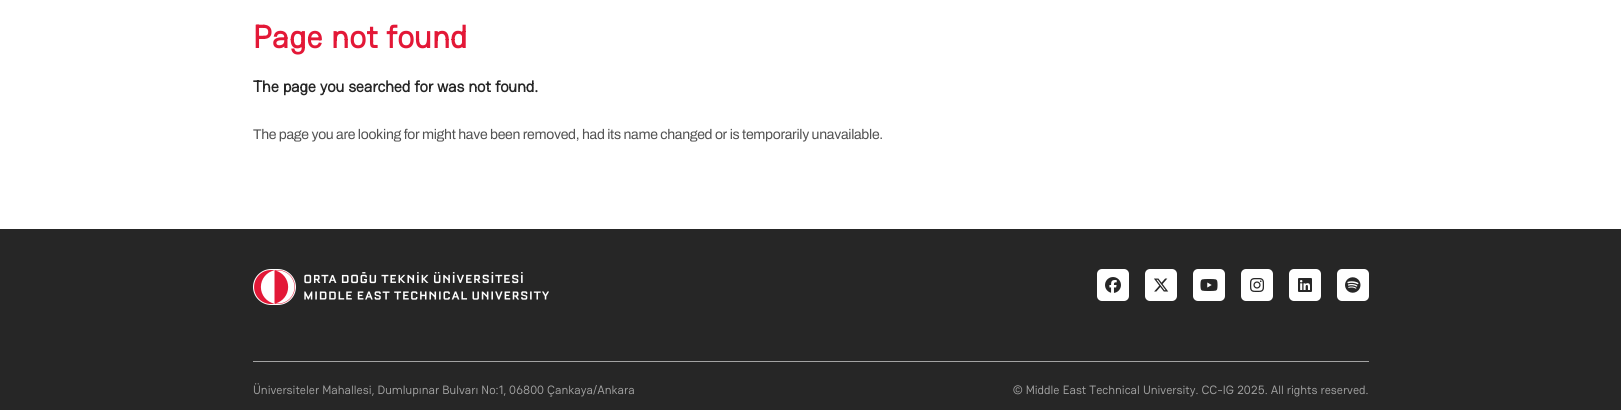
#include <cairo.h>
#include <math.h>
#include <stddef.h>

typedef struct { const char *family; double size; int italic, bold; unsigned color; } style_t;
static cairo_t *ctx;

static void ink(unsigned color) {
    cairo_set_source_rgb(ctx, (color >> 16) / 255.0, (color >> 8 & 255) / 255.0, (color & 255) / 255.0);
}

static void write(double x, double y, const char *s, const style_t *st) {
    cairo_select_font_face(ctx, st->family, st->italic ? CAIRO_FONT_SLANT_ITALIC : CAIRO_FONT_SLANT_NORMAL,
        st->bold ? CAIRO_FONT_WEIGHT_BOLD : CAIRO_FONT_WEIGHT_NORMAL);
    cairo_set_font_size(ctx, st->size);
    ink(st->color);
    cairo_move_to(ctx, x, y);
    cairo_show_text(ctx, s);
}

static void write_spaced(double x, double y, const char *s, double letter, double word) {
    cairo_move_to(ctx, x, y);
    while (*s) {
        char ch[5] = {0};
        int n = 0;
        do ch[n++] = *s++; while ((*s & 0xC0) == 0x80);
        cairo_show_text(ctx, ch);
        cairo_rel_move_to(ctx, letter + word * (*ch == ' '), 0);
    }
}

static void block(double x, double y, double w, double h, unsigned color) {
    ink(color);
    cairo_rectangle(ctx, x, y, w, h);
    cairo_fill(ctx);
}

static void round_path(double x, double y, double w, double h, double r) {
    cairo_new_sub_path(ctx);
    cairo_arc(ctx, x + w - r, y + h - r, r, 0, M_PI / 2);
    cairo_arc(ctx, x + r, y + h - r, r, M_PI / 2, M_PI);
    cairo_arc(ctx, x + r, y + r, r, M_PI, 1.5 * M_PI);
    cairo_arc(ctx, x + w - r, y + r, r, 1.5 * M_PI, 2 * M_PI);
    cairo_close_path(ctx);
}

static void paste(const char *path, double x, double y, double w, double h) {
    cairo_surface_t *image = cairo_image_surface_create_from_png(path);
    cairo_save(ctx);
    cairo_set_source_surface(ctx, image, x, y);
    cairo_rectangle(ctx, x, y, w, h);
    cairo_fill(ctx);
    cairo_restore(ctx);
    cairo_surface_destroy(image);
}

static const style_t s1 = {"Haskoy", 32, 0, 1, 0xe31837};
static const style_t s2 = {"Haskoy", 12, 0, 0, 0xa3a3a3};

int main(void) {
    cairo_surface_t *surface = cairo_image_surface_create(CAIRO_FORMAT_RGB24, 1621, 410);
    ctx = cairo_create(surface);
    cairo_font_options_t *options = cairo_font_options_create();
    cairo_font_options_set_hint_metrics(options, CAIRO_HINT_METRICS_OFF);
    cairo_font_options_set_hint_style(options, CAIRO_HINT_STYLE_NONE);
    cairo_set_font_options(ctx, options);
    cairo_set_miter_limit(ctx, 4);
    ink(0xffffff);
    cairo_paint(ctx);
    write(253, 48, "Page not found", &s1);
    cairo_set_font_size(ctx, 16);
    ink(0x262626);
    write_spaced(253, 92, "The page you searched for was not found.", -0.28, 0.25);
    cairo_select_font_face(ctx, "Archivo", CAIRO_FONT_SLANT_NORMAL, CAIRO_FONT_WEIGHT_NORMAL);
    cairo_set_font_size(ctx, 14);
    ink(0x525252);
    write_spaced(253, 139, "The page you are looking for might have been removed, had its name changed or is temporarily unavailable.", -0.28, 0);
    block(0, 229, 1621, 181, 0x262626);
    paste("pic1.png", 253, 269, 296, 36);
    ink(0xffffff);
    round_path(1097, 269, 32, 32, 5);
    cairo_fill(ctx);
    paste("pic2.png", 1105, 277, 16, 16);
    round_path(1145, 269, 32, 32, 5);
    cairo_fill(ctx);
    paste("pic3.png", 1154, 278, 15, 14);
    round_path(1193, 269, 32, 32, 5);
    cairo_fill(ctx);
    paste("pic4.png", 1200, 279, 18, 12);
    round_path(1241, 269, 32, 32, 5);
    cairo_fill(ctx);
    paste("pic5.png", 1250, 278, 14, 14);
    round_path(1289, 269, 32, 32, 5);
    cairo_fill(ctx);
    paste("pic6.png", 1298, 278, 14, 14);
    round_path(1337, 269, 32, 32, 5);
    cairo_fill(ctx);
    paste("pic7.png", 1345, 277, 16, 16);
    block(253, 361, 1116, 1, 0xa3a3a3);
    write(253, 394, "Üniversiteler Mahallesi, Dumlupınar Bulvarı No:1, 06800 Çankaya/Ankara", &s2);
    write(1013, 394, "© Middle East Technical University. CC-IG 2025. All rights reserved.", &s2);
    cairo_surface_write_to_png(surface, "screenshot.png");
    cairo_font_options_destroy(options);
    cairo_destroy(ctx);
    cairo_surface_destroy(surface);
    return 0;
}
